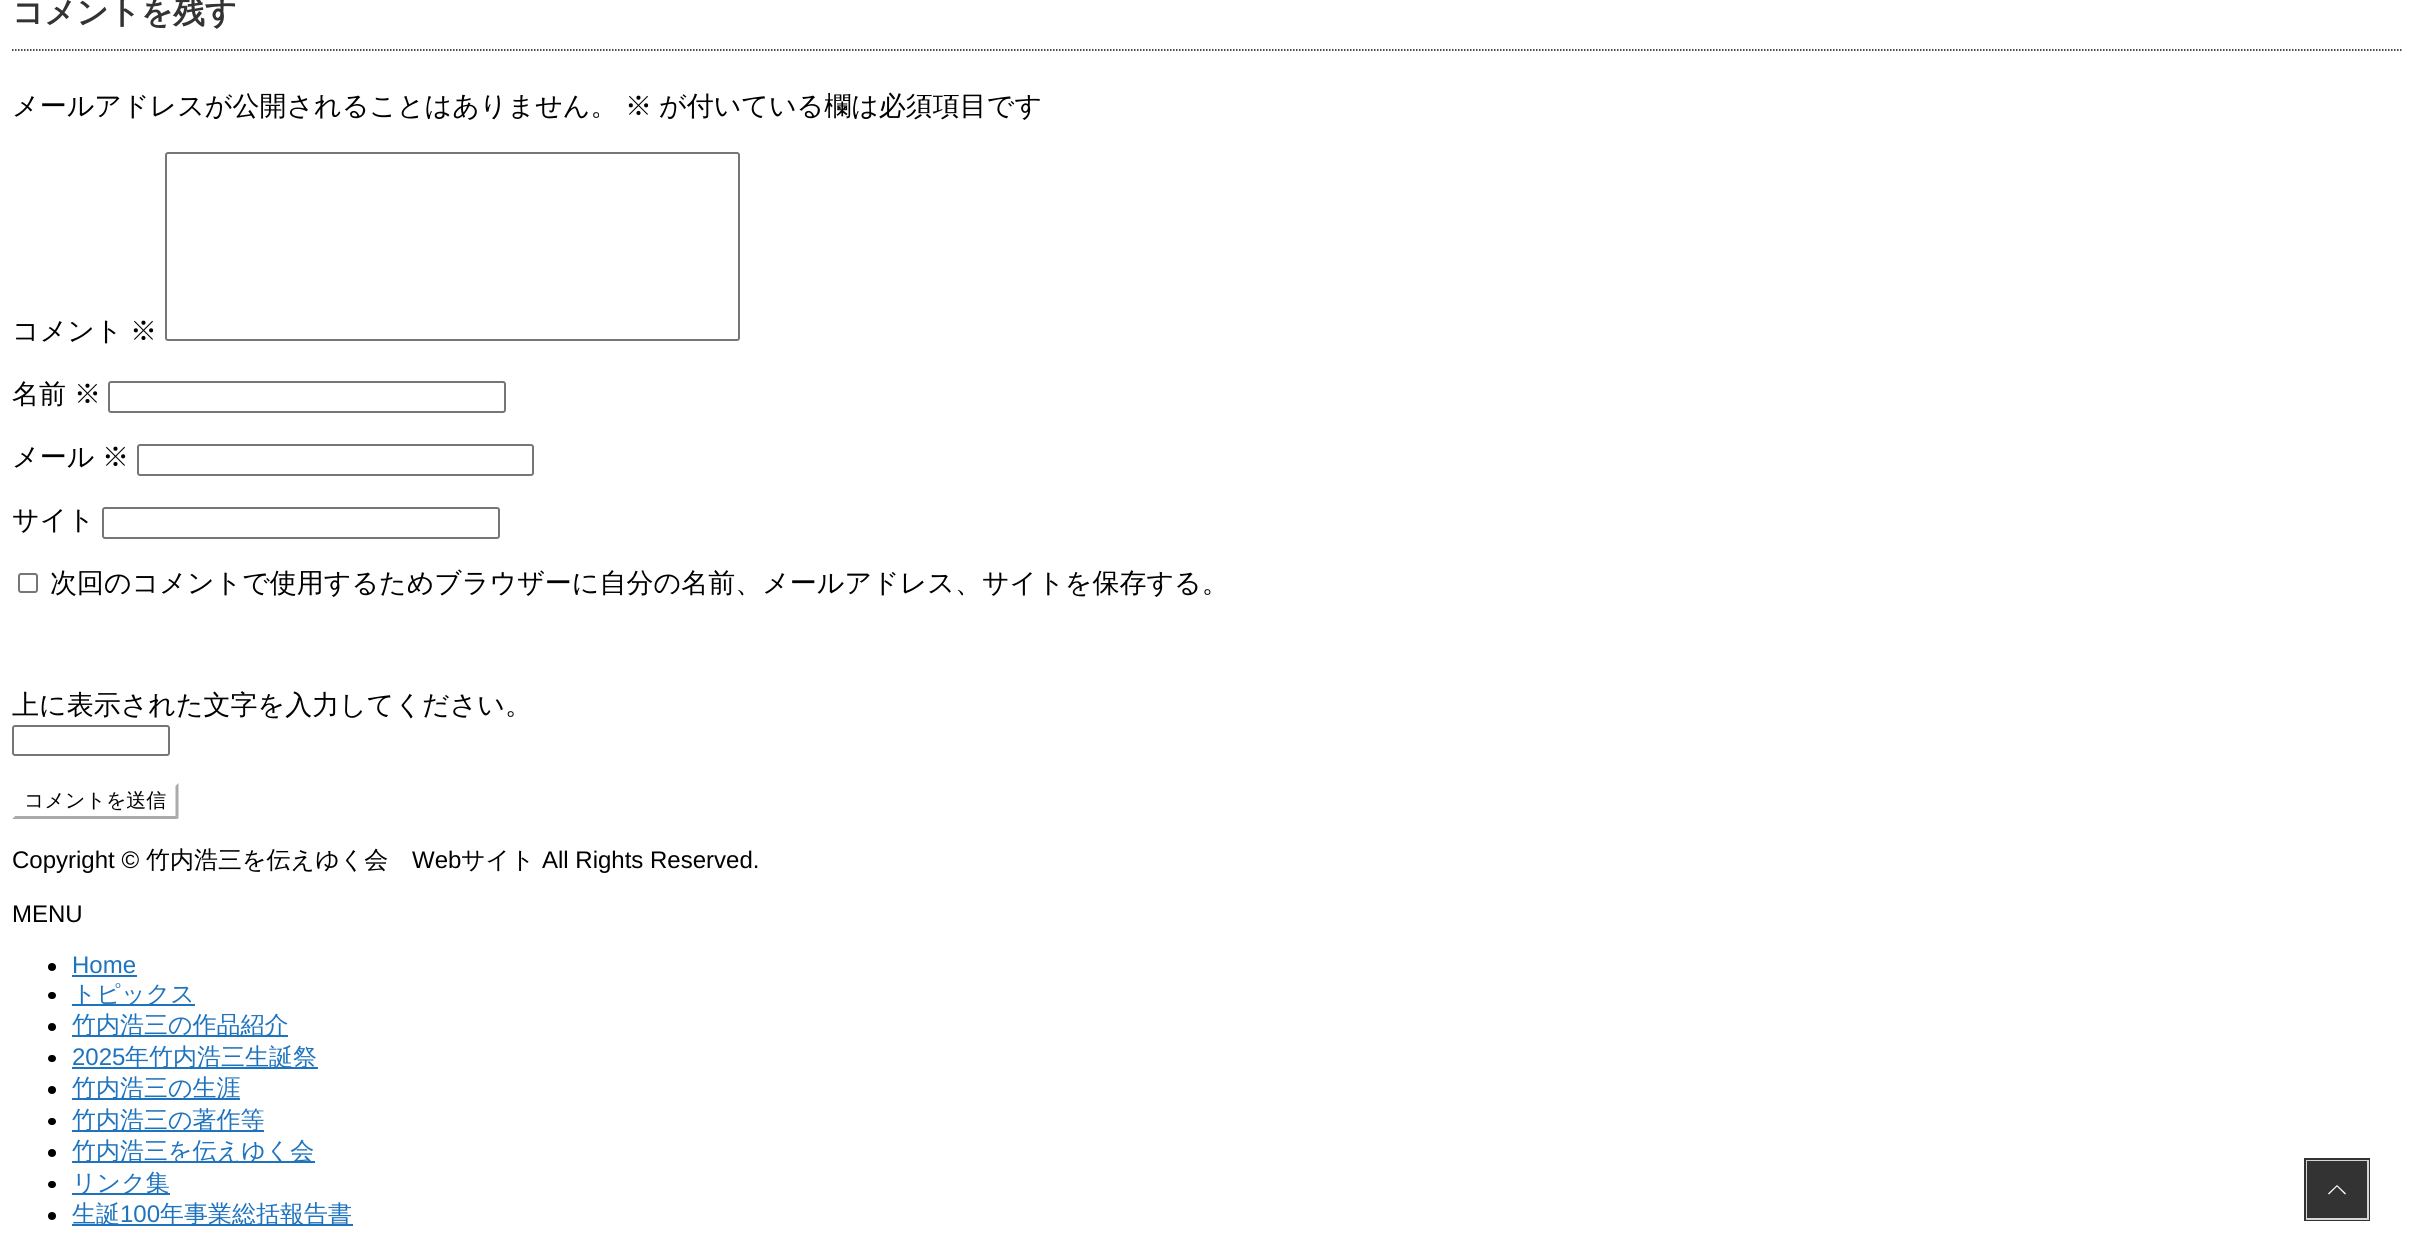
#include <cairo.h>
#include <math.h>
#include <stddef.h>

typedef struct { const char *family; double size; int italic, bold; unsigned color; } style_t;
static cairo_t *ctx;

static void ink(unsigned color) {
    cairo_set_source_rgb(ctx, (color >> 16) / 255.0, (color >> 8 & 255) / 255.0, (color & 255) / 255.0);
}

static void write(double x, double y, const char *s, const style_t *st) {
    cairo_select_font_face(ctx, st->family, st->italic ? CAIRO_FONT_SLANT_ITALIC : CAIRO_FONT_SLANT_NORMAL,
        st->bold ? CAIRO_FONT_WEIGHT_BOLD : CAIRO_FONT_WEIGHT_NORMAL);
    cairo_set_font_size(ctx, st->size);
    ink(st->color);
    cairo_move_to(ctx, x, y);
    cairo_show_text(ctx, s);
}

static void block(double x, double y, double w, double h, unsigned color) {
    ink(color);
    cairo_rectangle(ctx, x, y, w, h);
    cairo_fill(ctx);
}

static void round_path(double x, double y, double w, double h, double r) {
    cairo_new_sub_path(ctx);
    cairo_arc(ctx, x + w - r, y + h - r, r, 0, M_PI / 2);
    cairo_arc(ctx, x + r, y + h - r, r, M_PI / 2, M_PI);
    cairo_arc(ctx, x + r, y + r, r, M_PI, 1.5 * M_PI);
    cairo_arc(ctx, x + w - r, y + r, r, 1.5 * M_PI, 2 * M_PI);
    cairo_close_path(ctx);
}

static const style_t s1 = {"WenQuanYi Zen Hei", 31.5, 0, 1, 0x333333};
static const style_t s2 = {"WenQuanYi Zen Hei Medium", 27, 0, 0, 0x000000};
static const style_t s3 = {"WenQuanYi Zen Hei Medium", 20, 0, 0, 0x000000};
static const style_t s4 = {"Liberation Sans", 24, 0, 0, 0x000000};
static const style_t s5 = {"WenQuanYi Zen Hei Medium", 24, 0, 0, 0x000000};
static const style_t s6 = {"Liberation Sans", 24, 0, 0, 0x1e73be};
static const style_t s7 = {"WenQuanYi Zen Hei Medium", 24, 0, 0, 0x1e73be};

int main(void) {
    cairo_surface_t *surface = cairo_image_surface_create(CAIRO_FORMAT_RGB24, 2415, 1255);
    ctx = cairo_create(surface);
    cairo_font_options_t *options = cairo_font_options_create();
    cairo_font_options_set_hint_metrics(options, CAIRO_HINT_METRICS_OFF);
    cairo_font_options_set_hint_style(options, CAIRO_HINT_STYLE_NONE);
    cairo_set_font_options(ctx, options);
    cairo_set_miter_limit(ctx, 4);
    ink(0xffffff);
    cairo_paint(ctx);
    cairo_new_path(ctx);
    cairo_move_to(ctx, 12, 50);
    cairo_line_to(ctx, 2403, 50);
    ink(0x111111);
    cairo_set_line_width(ctx, 1.5);
    cairo_set_dash(ctx, (double[]){1.5, 1.5}, 2, 0);
    cairo_stroke(ctx);
    write(12, 23, "コメントを残す", &s1);
    write(12, 115, "メールアドレスが公開されることはありません。", &s2);
    write(625, 115, "※", &s2);
    write(659, 115, "が付いている欄は必須項目です", &s2);
    write(12, 340, "コメント", &s2);
    write(130, 340, "※", &s2);
    round_path(166, 153, 573, 187, 2);
    ink(0x767676);
    cairo_set_line_width(ctx, 2);
    cairo_set_dash(ctx, NULL, 0, 0);
    cairo_stroke(ctx);
    write(12, 403, "名前", &s2);
    write(74, 403, "※", &s2);
    round_path(109, 382, 396, 30, 2);
    ink(0x767676);
    cairo_stroke(ctx);
    write(12, 466, "メール", &s2);
    write(102, 466, "※", &s2);
    round_path(138, 445, 395, 30, 2);
    ink(0x767676);
    cairo_stroke(ctx);
    write(12, 529, "サイト", &s2);
    round_path(103, 508, 396, 30, 2);
    ink(0x767676);
    cairo_stroke(ctx);
    round_path(19, 574, 18, 18, 2);
    cairo_stroke(ctx);
    write(50, 592, "次回のコメントで使用するためブラウザーに自分の名前、メールアドレス、サイトを保存する。", &s2);
    write(12, 714, "上に表示された文字を入力してください。", &s2);
    round_path(13, 726, 156, 29, 2);
    ink(0x767676);
    cairo_stroke(ctx);
    ink(0xaaaaaa);
    cairo_new_path(ctx);
    cairo_move_to(ctx, 178.5, 783);
    cairo_line_to(ctx, 178.5, 819);
    cairo_line_to(ctx, 175.5, 816);
    cairo_line_to(ctx, 175.5, 786);
    cairo_close_path(ctx);
    cairo_fill(ctx);
    cairo_new_path(ctx);
    cairo_move_to(ctx, 178, 819);
    cairo_line_to(ctx, 12, 819);
    cairo_line_to(ctx, 15, 816);
    cairo_line_to(ctx, 176, 816);
    cairo_close_path(ctx);
    cairo_fill(ctx);
    ink(0xffffff);
    cairo_new_path(ctx);
    cairo_move_to(ctx, 12, 819);
    cairo_line_to(ctx, 12, 783);
    cairo_line_to(ctx, 15, 786);
    cairo_line_to(ctx, 15, 816);
    cairo_close_path(ctx);
    cairo_fill(ctx);
    write(24, 807, "コメントを送信", &s3);
    write(12, 868, "Copyright ©", &s4);
    write(146, 868, "竹内浩三を伝えゆく会", &s5);
    write(412, 868, "Web", &s4);
    write(461, 868, "サイト", &s5);
    write(542, 868, "All Rights Reserved.", &s4);
    write(12, 922, "MENU", &s4);
    cairo_new_path(ctx);
    cairo_arc(ctx, 52, 967, 4, 0, 2 * M_PI);
    cairo_fill(ctx);
    write(72, 973, "Home", &s6);
    block(72, 975, 65, 2, 0x1e73be);
    ink(0x000000);
    round_path(48, 992, 8, 7, 3.5);
    cairo_fill(ctx);
    block(72, 1004, 123, 2, 0x1e73be);
    write(72, 1002, "トピックス", &s7);
    ink(0x000000);
    cairo_new_path(ctx);
    cairo_arc(ctx, 52, 1027, 4, 0, 2 * M_PI);
    cairo_fill(ctx);
    block(72, 1035, 216, 2, 0x1e73be);
    write(72, 1033, "竹内浩三の作品紹介", &s7);
    ink(0x000000);
    round_path(48, 1055, 8, 7, 3.5);
    cairo_fill(ctx);
    write(72, 1065, "2025", &s6);
    block(72, 1067, 246, 2, 0x1e73be);
    write(125, 1065, "年竹内浩三生誕祭", &s7);
    ink(0x000000);
    cairo_new_path(ctx);
    cairo_arc(ctx, 52, 1090, 4, 0, 2 * M_PI);
    cairo_fill(ctx);
    block(72, 1098, 168, 2, 0x1e73be);
    write(72, 1096, "竹内浩三の生涯", &s7);
    ink(0x000000);
    round_path(48, 1118, 8, 7, 3.5);
    cairo_fill(ctx);
    block(72, 1130, 192, 2, 0x1e73be);
    write(72, 1128, "竹内浩三の著作等", &s7);
    ink(0x000000);
    cairo_new_path(ctx);
    cairo_arc(ctx, 52, 1153, 4, 0, 2 * M_PI);
    cairo_fill(ctx);
    block(72, 1161, 243, 2, 0x1e73be);
    write(72, 1159, "竹内浩三を伝えゆく会", &s7);
    ink(0x000000);
    round_path(48, 1181, 8, 7, 3.5);
    cairo_fill(ctx);
    block(72, 1193, 98, 2, 0x1e73be);
    write(72, 1191, "リンク集", &s7);
    ink(0x000000);
    cairo_new_path(ctx);
    cairo_arc(ctx, 52, 1216, 4, 0, 2 * M_PI);
    cairo_fill(ctx);
    block(72, 1224, 281, 2, 0x1e73be);
    write(72, 1222, "生誕", &s7);
    write(120, 1222, "100", &s6);
    write(160, 1222, "年事業総括報告書", &s7);
    cairo_rectangle(ctx, 2305.5, 1159.5, 63, 60);
    ink(0x333333);
    cairo_set_line_width(ctx, 3);
    cairo_stroke(ctx);
    cairo_rectangle(ctx, 2307, 1161, 61, 58);
    cairo_set_source_rgba(ctx, 1, 1, 1, 0.8);
    cairo_set_line_width(ctx, 2);
    cairo_stroke(ctx);
    block(2307, 1161, 60, 57, 0x333333);
    ink(0xffffff);
    cairo_new_path(ctx);
    cairo_move_to(ctx, 2346, 1193.5);
    cairo_line_to(ctx, 2345, 1194.5);
    cairo_line_to(ctx, 2337, 1186.5);
    cairo_line_to(ctx, 2329, 1194.5);
    cairo_line_to(ctx, 2328, 1193.5);
    cairo_line_to(ctx, 2337, 1185);
    cairo_close_path(ctx);
    cairo_fill(ctx);
    cairo_surface_write_to_png(surface, "screenshot.png");
    cairo_font_options_destroy(options);
    cairo_destroy(ctx);
    cairo_surface_destroy(surface);
    return 0;
}
